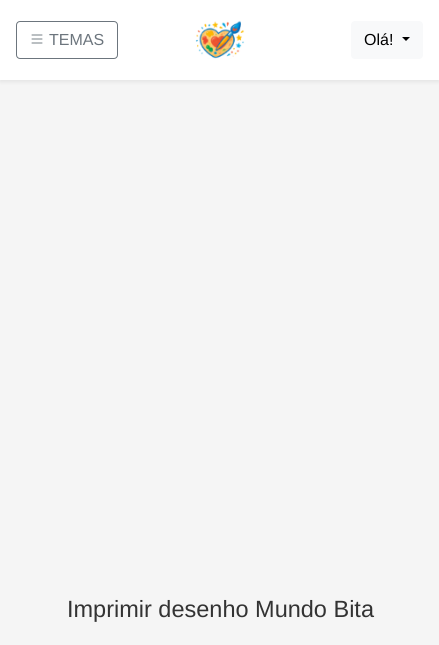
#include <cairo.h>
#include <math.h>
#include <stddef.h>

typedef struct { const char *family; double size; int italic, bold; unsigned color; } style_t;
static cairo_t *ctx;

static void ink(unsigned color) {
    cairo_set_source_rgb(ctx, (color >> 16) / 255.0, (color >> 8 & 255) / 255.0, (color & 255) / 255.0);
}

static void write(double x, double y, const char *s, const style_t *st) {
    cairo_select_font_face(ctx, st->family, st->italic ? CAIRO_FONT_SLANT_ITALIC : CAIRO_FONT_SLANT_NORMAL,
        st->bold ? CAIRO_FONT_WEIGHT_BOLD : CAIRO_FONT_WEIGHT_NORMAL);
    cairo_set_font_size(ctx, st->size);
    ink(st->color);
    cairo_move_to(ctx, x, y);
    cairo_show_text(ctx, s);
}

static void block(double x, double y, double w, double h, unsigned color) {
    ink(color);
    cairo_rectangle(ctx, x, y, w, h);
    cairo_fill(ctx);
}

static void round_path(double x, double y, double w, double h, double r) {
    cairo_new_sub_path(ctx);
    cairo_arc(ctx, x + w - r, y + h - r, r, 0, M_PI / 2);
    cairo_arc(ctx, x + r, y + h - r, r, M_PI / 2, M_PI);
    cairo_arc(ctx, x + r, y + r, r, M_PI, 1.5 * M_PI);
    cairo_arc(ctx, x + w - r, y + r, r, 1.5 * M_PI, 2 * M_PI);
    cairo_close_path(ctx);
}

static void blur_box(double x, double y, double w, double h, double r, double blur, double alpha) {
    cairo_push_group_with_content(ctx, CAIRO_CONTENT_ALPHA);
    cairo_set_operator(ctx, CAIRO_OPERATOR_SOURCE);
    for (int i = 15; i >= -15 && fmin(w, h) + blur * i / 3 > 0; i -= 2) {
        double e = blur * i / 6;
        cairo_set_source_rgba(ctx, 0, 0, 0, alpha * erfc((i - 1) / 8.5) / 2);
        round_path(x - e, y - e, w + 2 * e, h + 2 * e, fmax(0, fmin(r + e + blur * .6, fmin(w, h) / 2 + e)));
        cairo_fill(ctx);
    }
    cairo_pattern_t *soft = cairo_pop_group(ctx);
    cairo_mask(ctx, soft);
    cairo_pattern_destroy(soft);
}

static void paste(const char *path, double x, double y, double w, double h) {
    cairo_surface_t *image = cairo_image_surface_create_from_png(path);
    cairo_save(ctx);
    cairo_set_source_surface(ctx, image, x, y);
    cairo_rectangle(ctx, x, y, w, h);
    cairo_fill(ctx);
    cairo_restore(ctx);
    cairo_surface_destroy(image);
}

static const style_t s1 = {"Liberation Sans", 16, 0, 0, 0x6c757d};
static const style_t s2 = {"Liberation Sans", 16, 0, 0, 0x000000};
static const style_t s3 = {"Liberation Sans", 23.5, 0, 0, 0x333333};

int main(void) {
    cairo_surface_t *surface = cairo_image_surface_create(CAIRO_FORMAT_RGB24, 439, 645);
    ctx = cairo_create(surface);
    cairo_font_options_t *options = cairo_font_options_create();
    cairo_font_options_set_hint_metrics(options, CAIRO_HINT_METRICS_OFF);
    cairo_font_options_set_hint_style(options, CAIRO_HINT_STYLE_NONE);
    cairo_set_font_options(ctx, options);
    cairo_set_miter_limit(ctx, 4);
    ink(0xf5f5f5);
    cairo_paint(ctx);
    ink(0x000000);
    blur_box(0, 2, 439, 80, 0, 2, 0.07);
    block(0, 0, 439, 80, 0xffffff);
    round_path(16.5, 21.5, 101, 37, 3.5);
    ink(0x6c757d);
    cairo_set_line_width(ctx, 1);
    cairo_stroke(ctx);
    paste("pic1.png", 31, 34, 12, 10);
    write(49, 45, "TEMAS", &s1);
    paste("pic2.png", 195, 20, 50, 39);
    ink(0xf8f9fa);
    round_path(351, 21, 72, 38, 4);
    cairo_fill(ctx);
    write(364, 45, "Olá!", &s2);
    cairo_new_path(ctx);
    cairo_move_to(ctx, 402, 37);
    cairo_line_to(ctx, 410, 37);
    cairo_line_to(ctx, 406, 41);
    cairo_close_path(ctx);
    cairo_fill(ctx);
    write(67, 617, "Imprimir desenho Mundo Bita", &s3);
    cairo_surface_write_to_png(surface, "screenshot.png");
    cairo_font_options_destroy(options);
    cairo_destroy(ctx);
    cairo_surface_destroy(surface);
    return 0;
}
